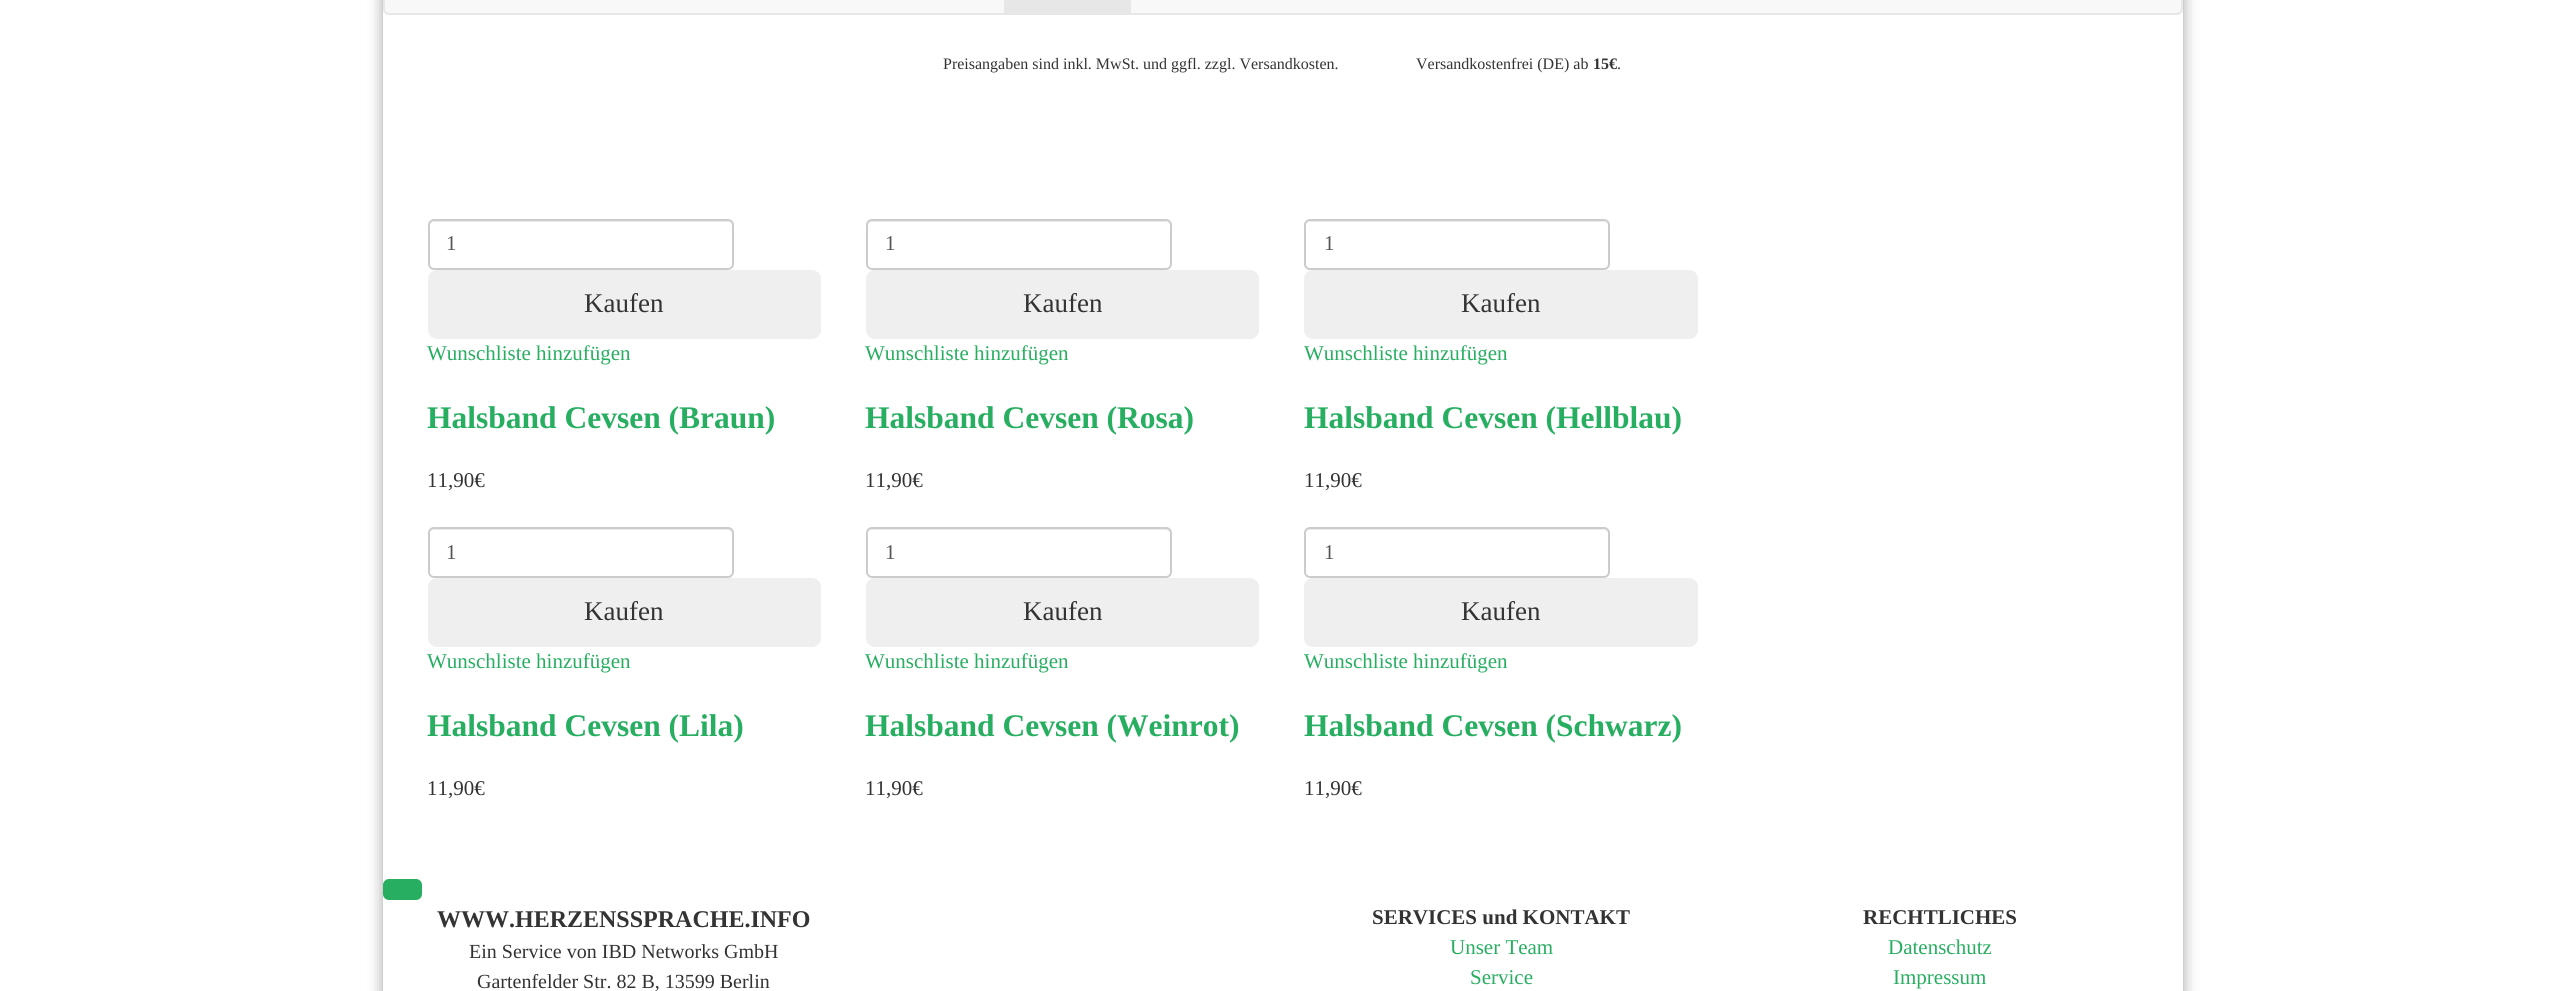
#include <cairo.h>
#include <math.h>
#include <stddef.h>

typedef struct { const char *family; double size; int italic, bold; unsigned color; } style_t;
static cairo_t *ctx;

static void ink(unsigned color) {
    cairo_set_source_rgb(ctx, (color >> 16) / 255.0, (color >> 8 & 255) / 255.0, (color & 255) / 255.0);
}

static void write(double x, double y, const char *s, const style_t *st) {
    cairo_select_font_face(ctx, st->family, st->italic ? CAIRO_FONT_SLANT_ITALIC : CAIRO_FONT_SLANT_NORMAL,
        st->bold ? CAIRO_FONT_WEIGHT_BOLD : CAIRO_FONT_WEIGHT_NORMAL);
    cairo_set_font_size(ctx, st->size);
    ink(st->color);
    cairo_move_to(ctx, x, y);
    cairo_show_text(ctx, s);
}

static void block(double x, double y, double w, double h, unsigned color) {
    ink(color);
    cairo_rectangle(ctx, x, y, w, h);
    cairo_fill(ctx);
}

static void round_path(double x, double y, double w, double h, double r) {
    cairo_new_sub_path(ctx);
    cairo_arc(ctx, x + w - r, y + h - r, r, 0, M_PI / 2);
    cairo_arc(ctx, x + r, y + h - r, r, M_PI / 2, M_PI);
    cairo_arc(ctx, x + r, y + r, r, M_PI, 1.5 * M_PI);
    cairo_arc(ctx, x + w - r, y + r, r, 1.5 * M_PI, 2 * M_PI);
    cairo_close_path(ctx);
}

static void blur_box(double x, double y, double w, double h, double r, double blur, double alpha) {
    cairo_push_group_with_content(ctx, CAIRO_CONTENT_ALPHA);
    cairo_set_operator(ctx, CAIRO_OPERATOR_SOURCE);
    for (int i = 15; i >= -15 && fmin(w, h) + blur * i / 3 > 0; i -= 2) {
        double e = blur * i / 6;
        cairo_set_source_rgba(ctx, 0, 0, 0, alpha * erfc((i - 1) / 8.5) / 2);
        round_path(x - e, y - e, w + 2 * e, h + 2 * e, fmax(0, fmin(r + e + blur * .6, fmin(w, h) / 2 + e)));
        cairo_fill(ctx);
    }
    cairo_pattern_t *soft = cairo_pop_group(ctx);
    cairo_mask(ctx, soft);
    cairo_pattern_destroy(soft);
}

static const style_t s1 = {"Liberation Serif", 16, 0, 0, 0x333333};
static const style_t s2 = {"Liberation Serif", 16, 0, 1, 0x333333};
static const style_t s3 = {"Liberation Serif", 21, 0, 0, 0x555555};
static const style_t s4 = {"Liberation Serif", 27, 0, 0, 0x333333};
static const style_t s5 = {"Liberation Serif", 21, 0, 0, 0x27ae61};
static const style_t s6 = {"Liberation Serif", 31.5, 0, 1, 0x27ae61};
static const style_t s7 = {"Liberation Serif", 21, 0, 0, 0x333333};
static const style_t s8 = {"Liberation Serif", 24, 0, 1, 0x333333};
static const style_t s9 = {"Liberation Serif", 20, 0, 0, 0x333333};
static const style_t s10 = {"Liberation Serif", 21, 0, 1, 0x333333};

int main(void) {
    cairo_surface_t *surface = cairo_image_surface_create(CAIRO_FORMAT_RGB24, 2563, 991);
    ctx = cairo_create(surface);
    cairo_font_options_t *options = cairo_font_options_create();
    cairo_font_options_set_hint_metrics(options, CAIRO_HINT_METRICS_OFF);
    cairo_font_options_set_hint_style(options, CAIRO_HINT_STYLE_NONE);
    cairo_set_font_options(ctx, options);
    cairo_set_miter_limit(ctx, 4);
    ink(0xffffff);
    cairo_paint(ctx);
    cairo_save(ctx);
    cairo_set_fill_rule(ctx, CAIRO_FILL_RULE_EVEN_ODD);
    cairo_new_path(ctx);
    cairo_move_to(ctx, 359, 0);
    cairo_line_to(ctx, 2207, 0);
    cairo_line_to(ctx, 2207, 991);
    cairo_line_to(ctx, 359, 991);
    cairo_close_path(ctx);
    cairo_move_to(ctx, 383, -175);
    cairo_line_to(ctx, 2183, -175);
    cairo_line_to(ctx, 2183, 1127);
    cairo_line_to(ctx, 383, 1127);
    cairo_close_path(ctx);
    cairo_clip(ctx);
    ink(0x000000);
    blur_box(383, -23, 1800, 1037, 0, 7.5, 0.2);
    blur_box(383, -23, 1800, 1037, 0, 7.5, 0.2);
    cairo_restore(ctx);
    ink(0xf8f8f8);
    round_path(384, -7, 1798, 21, 5);
    cairo_fill_preserve(ctx);
    ink(0xe7e7e7);
    cairo_stroke(ctx);
    block(1004, 0, 127, 13, 0xe7e7e7);
    write(943, 69, "Preisangaben sind inkl. MwSt. und ggfl. zzgl. Versandkosten.", &s1);
    write(1416, 69, "Versandkostenfrei (DE) ab", &s1);
    write(1593, 69, "15€", &s2);
    write(1617, 69, ".", &s1);
    ink(0xececec);
    cairo_new_path(ctx);
    cairo_move_to(ctx, 434, 222);
    cairo_line_to(ctx, 728, 222);
    cairo_curve_to(ctx, 730, 222, 732, 224, 732, 226);
    cairo_curve_to(ctx, 732, 223, 730, 221, 727, 221);
    cairo_line_to(ctx, 434, 221);
    cairo_curve_to(ctx, 431, 221, 429, 223, 429, 226);
    cairo_curve_to(ctx, 429, 224, 431, 222, 434, 222);
    cairo_close_path(ctx);
    cairo_fill(ctx);
    round_path(429, 220, 304, 49, 5);
    ink(0xcccccc);
    cairo_stroke(ctx);
    write(446, 250, "1", &s3);
    ink(0xefefef);
    round_path(428, 270, 393, 69, 9);
    cairo_fill(ctx);
    write(584, 312, "Kaufen", &s4);
    write(427, 360, "Wunschliste hinzufügen", &s5);
    write(427, 428, "Halsband Cevsen (Braun)", &s6);
    write(427, 487, "11,90€", &s7);
    ink(0xececec);
    cairo_new_path(ctx);
    cairo_move_to(ctx, 872, 222);
    cairo_line_to(ctx, 1166, 222);
    cairo_curve_to(ctx, 1168, 222, 1170, 224, 1170, 226);
    cairo_curve_to(ctx, 1170, 223, 1168, 221, 1165, 221);
    cairo_line_to(ctx, 872, 221);
    cairo_curve_to(ctx, 869, 221, 867, 223, 867, 226);
    cairo_curve_to(ctx, 867, 224, 869, 222, 872, 222);
    cairo_close_path(ctx);
    cairo_fill(ctx);
    round_path(867, 220, 304, 49, 5);
    ink(0xcccccc);
    cairo_stroke(ctx);
    write(885, 250, "1", &s3);
    ink(0xefefef);
    round_path(866, 270, 393, 69, 9);
    cairo_fill(ctx);
    write(1023, 312, "Kaufen", &s4);
    write(865, 360, "Wunschliste hinzufügen", &s5);
    write(865, 428, "Halsband Cevsen (Rosa)", &s6);
    write(865, 487, "11,90€", &s7);
    ink(0xececec);
    cairo_new_path(ctx);
    cairo_move_to(ctx, 1310, 222);
    cairo_line_to(ctx, 1604, 222);
    cairo_curve_to(ctx, 1606, 222, 1608, 224, 1608, 226);
    cairo_curve_to(ctx, 1608, 223, 1606, 221, 1603, 221);
    cairo_line_to(ctx, 1310, 221);
    cairo_curve_to(ctx, 1307, 221, 1305, 223, 1305, 226);
    cairo_curve_to(ctx, 1305, 224, 1307, 222, 1310, 222);
    cairo_close_path(ctx);
    cairo_fill(ctx);
    round_path(1305, 220, 304, 49, 5);
    ink(0xcccccc);
    cairo_stroke(ctx);
    write(1324, 250, "1", &s3);
    ink(0xefefef);
    round_path(1304, 270, 394, 69, 9);
    cairo_fill(ctx);
    write(1461, 312, "Kaufen", &s4);
    write(1304, 360, "Wunschliste hinzufügen", &s5);
    write(1304, 428, "Halsband Cevsen (Hellblau)", &s6);
    write(1304, 487, "11,90€", &s7);
    ink(0xececec);
    cairo_new_path(ctx);
    cairo_move_to(ctx, 434, 530);
    cairo_line_to(ctx, 728, 530);
    cairo_curve_to(ctx, 730, 530, 732, 532, 732, 534);
    cairo_line_to(ctx, 732, 533);
    cairo_curve_to(ctx, 732, 530, 730, 528, 727, 528);
    cairo_line_to(ctx, 434, 528);
    cairo_curve_to(ctx, 431, 528, 429, 530, 429, 533);
    cairo_line_to(ctx, 429, 534);
    cairo_curve_to(ctx, 429, 532, 431, 530, 434, 530);
    cairo_close_path(ctx);
    cairo_fill(ctx);
    round_path(429, 528, 304, 49, 5);
    ink(0xcccccc);
    cairo_stroke(ctx);
    write(446, 559, "1", &s3);
    ink(0xefefef);
    round_path(428, 578, 393, 69, 9);
    cairo_fill(ctx);
    write(584, 620, "Kaufen", &s4);
    write(427, 668, "Wunschliste hinzufügen", &s5);
    write(427, 736, "Halsband Cevsen (Lila)", &s6);
    write(427, 795, "11,90€", &s7);
    ink(0xececec);
    cairo_new_path(ctx);
    cairo_move_to(ctx, 872, 530);
    cairo_line_to(ctx, 1166, 530);
    cairo_curve_to(ctx, 1168, 530, 1170, 532, 1170, 534);
    cairo_line_to(ctx, 1170, 533);
    cairo_curve_to(ctx, 1170, 530, 1168, 528, 1165, 528);
    cairo_line_to(ctx, 872, 528);
    cairo_curve_to(ctx, 869, 528, 867, 530, 867, 533);
    cairo_line_to(ctx, 867, 534);
    cairo_curve_to(ctx, 867, 532, 869, 530, 872, 530);
    cairo_close_path(ctx);
    cairo_fill(ctx);
    round_path(867, 528, 304, 49, 5);
    ink(0xcccccc);
    cairo_stroke(ctx);
    write(885, 559, "1", &s3);
    ink(0xefefef);
    round_path(866, 578, 393, 69, 9);
    cairo_fill(ctx);
    write(1023, 620, "Kaufen", &s4);
    write(865, 668, "Wunschliste hinzufügen", &s5);
    write(865, 736, "Halsband Cevsen (Weinrot)", &s6);
    write(865, 795, "11,90€", &s7);
    ink(0xececec);
    cairo_new_path(ctx);
    cairo_move_to(ctx, 1310, 530);
    cairo_line_to(ctx, 1604, 530);
    cairo_curve_to(ctx, 1606, 530, 1608, 532, 1608, 534);
    cairo_line_to(ctx, 1608, 533);
    cairo_curve_to(ctx, 1608, 530, 1606, 528, 1603, 528);
    cairo_line_to(ctx, 1310, 528);
    cairo_curve_to(ctx, 1307, 528, 1305, 530, 1305, 533);
    cairo_line_to(ctx, 1305, 534);
    cairo_curve_to(ctx, 1305, 532, 1307, 530, 1310, 530);
    cairo_close_path(ctx);
    cairo_fill(ctx);
    round_path(1305, 528, 304, 49, 5);
    ink(0xcccccc);
    cairo_stroke(ctx);
    write(1324, 559, "1", &s3);
    ink(0xefefef);
    round_path(1304, 578, 394, 69, 9);
    cairo_fill(ctx);
    write(1461, 620, "Kaufen", &s4);
    write(1304, 668, "Wunschliste hinzufügen", &s5);
    write(1304, 736, "Halsband Cevsen (Schwarz)", &s6);
    write(1304, 795, "11,90€", &s7);
    ink(0x27ae61);
    round_path(384, 880, 37, 19, 5);
    cairo_fill_preserve(ctx);
    cairo_stroke(ctx);
    write(437, 927, "WWW.HERZENSSPRACHE.INFO", &s8);
    write(469, 958, "Ein Service von IBD Networks GmbH", &s9);
    write(477, 988, "Gartenfelder Str. 82 B, 13599 Berlin", &s9);
    write(1372, 924, "SERVICES und KONTAKT", &s10);
    write(1450, 954, "Unser Team", &s5);
    write(1470, 984, "Service", &s5);
    write(1863, 924, "RECHTLICHES", &s10);
    write(1888, 954, "Datenschutz", &s5);
    write(1893, 984, "Impressum", &s5);
    cairo_surface_write_to_png(surface, "screenshot.png");
    cairo_font_options_destroy(options);
    cairo_destroy(ctx);
    cairo_surface_destroy(surface);
    return 0;
}
